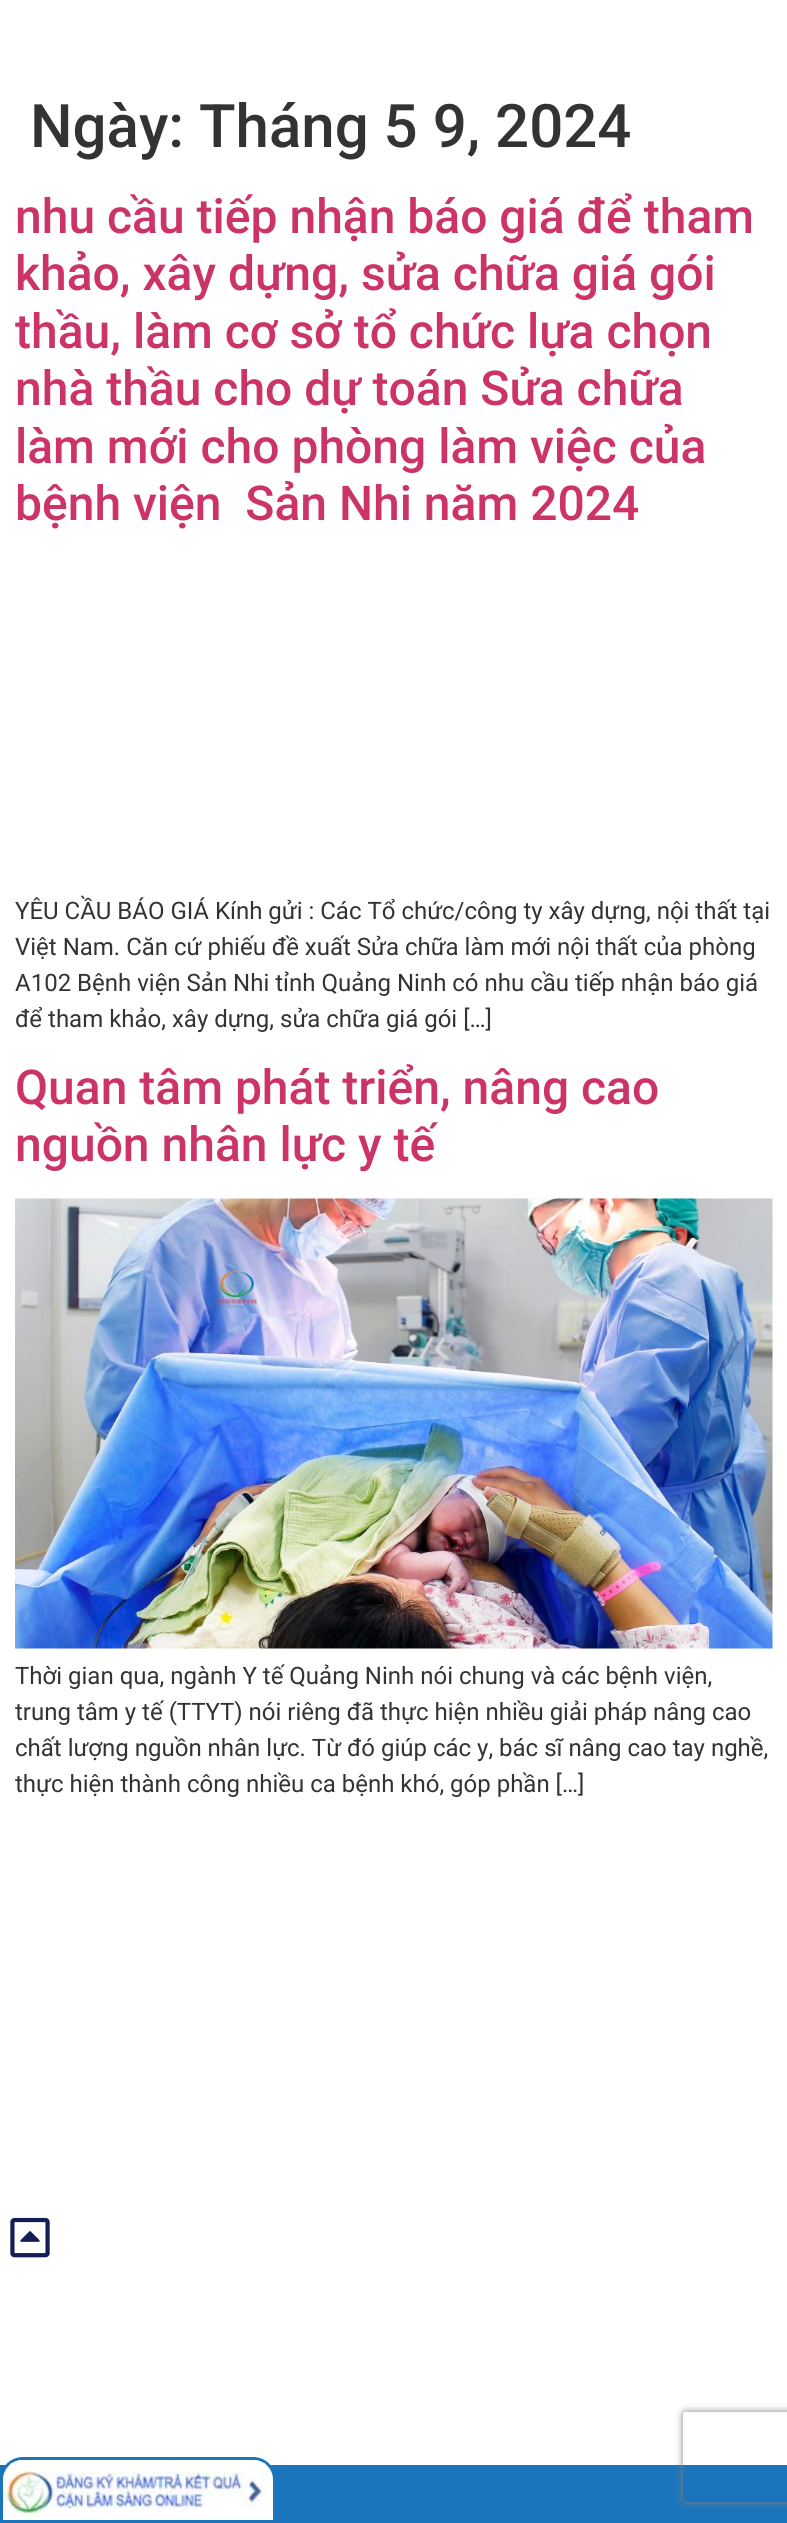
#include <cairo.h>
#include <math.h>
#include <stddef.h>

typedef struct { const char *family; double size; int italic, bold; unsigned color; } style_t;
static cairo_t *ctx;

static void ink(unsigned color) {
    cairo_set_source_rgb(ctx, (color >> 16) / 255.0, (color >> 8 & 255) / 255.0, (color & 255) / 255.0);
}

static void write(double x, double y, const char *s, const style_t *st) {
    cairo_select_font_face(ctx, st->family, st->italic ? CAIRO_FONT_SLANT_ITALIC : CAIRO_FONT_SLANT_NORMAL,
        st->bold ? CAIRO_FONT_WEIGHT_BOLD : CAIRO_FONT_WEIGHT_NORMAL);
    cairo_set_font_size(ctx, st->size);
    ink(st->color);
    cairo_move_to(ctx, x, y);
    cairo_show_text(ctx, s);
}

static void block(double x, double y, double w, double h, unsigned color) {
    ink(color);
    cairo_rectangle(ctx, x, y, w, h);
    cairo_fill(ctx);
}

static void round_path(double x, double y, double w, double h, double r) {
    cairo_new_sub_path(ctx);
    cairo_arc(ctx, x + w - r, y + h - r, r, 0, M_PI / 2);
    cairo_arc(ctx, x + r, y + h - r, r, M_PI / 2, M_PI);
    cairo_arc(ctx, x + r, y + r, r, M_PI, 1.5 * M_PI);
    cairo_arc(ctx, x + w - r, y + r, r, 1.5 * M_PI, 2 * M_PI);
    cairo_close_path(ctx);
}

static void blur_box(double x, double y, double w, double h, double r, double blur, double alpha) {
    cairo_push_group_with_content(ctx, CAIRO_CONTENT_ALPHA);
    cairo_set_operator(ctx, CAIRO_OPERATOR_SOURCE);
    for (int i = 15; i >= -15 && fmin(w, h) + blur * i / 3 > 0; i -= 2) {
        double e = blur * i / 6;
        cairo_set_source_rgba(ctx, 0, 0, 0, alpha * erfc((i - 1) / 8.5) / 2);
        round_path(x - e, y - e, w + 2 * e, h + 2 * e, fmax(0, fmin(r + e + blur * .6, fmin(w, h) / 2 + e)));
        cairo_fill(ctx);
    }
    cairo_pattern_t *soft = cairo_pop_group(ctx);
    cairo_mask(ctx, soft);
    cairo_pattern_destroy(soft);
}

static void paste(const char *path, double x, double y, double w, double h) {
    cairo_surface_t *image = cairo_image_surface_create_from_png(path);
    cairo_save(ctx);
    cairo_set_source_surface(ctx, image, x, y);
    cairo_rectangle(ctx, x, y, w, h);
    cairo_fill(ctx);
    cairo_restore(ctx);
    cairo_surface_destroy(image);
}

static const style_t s1 = {"Roboto Medium", 60, 0, 0, 0x333333};
static const style_t s2 = {"Roboto Medium", 48, 0, 0, 0xcc3366};
static const style_t s3 = {"Roboto", 24, 0, 0, 0x333333};

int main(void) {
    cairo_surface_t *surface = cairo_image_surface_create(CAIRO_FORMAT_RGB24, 787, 2523);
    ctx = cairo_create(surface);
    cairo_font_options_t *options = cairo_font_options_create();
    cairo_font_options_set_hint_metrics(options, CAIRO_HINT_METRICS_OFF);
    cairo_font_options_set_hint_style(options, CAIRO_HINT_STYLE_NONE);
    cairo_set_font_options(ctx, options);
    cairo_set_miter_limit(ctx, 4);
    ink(0xffffff);
    cairo_paint(ctx);
    write(30, 147, "Ngày: Tháng 5 9, 2024", &s1);
    write(15, 233, "nhu cầu tiếp nhận báo giá để tham", &s2);
    write(15, 290, "khảo, xây dựng, sửa chữa giá gói", &s2);
    write(15, 348, "thầu, làm cơ sở tổ chức lựa chọn", &s2);
    write(15, 405, "nhà thầu cho dự toán Sửa chữa", &s2);
    write(15, 463, "làm mới cho phòng làm việc của", &s2);
    write(15, 520, "bệnh viện  Sản Nhi năm 2024", &s2);
    write(15, 919, "YÊU CẦU BÁO GIÁ Kính gửi : Các Tổ chức/công ty xây dựng, nội thất tại", &s3);
    write(15, 955, "Việt Nam. Căn cứ phiếu đề xuất Sửa chữa làm mới nội thất của phòng", &s3);
    write(15, 991, "A102 Bệnh viện Sản Nhi tỉnh Quảng Ninh có nhu cầu tiếp nhận báo giá", &s3);
    write(15, 1027, "để tham khảo, xây dựng, sửa chữa giá gói […]", &s3);
    write(15, 1104, "Quan tâm phát triển, nâng cao", &s2);
    write(15, 1161, "nguồn nhân lực y tế", &s2);
    paste("pic1.png", 15, 1198, 758, 451);
    write(15, 1684, "Thời gian qua, ngành Y tế Quảng Ninh nói chung và các bệnh viện,", &s3);
    write(15, 1720, "trung tâm y tế (TTYT) nói riêng đã thực hiện nhiều giải pháp nâng cao", &s3);
    write(15, 1756, "chất lượng nguồn nhân lực. Từ đó giúp các y, bác sĩ nâng cao tay nghề,", &s3);
    write(15, 1792, "thực hiện thành công nhiều ca bệnh khó, góp phần […]", &s3);
    paste("pic2.png", 10, 2217, 40, 41);
    block(0, 2465, 787, 58, 0x1a75bc);
    cairo_new_path(ctx);
    cairo_move_to(ctx, 23, 2458.5);
    cairo_line_to(ctx, 253, 2458.5);
    cairo_curve_to(ctx, 265, 2458.5, 274.5, 2468, 274.5, 2480);
    cairo_line_to(ctx, 274.5, 2521.5);
    cairo_line_to(ctx, 1.5, 2521.5);
    cairo_line_to(ctx, 1.5, 2480);
    cairo_curve_to(ctx, 1.5, 2468, 11, 2458.5, 23, 2458.5);
    cairo_close_path(ctx);
    cairo_set_line_width(ctx, 3);
    cairo_stroke(ctx);
    paste("pic3.png", 3, 2460, 270, 60);
    cairo_save(ctx);
    cairo_set_fill_rule(ctx, CAIRO_FILL_RULE_EVEN_ODD);
    cairo_new_path(ctx);
    cairo_move_to(ctx, 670, 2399);
    cairo_line_to(ctx, 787, 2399);
    cairo_line_to(ctx, 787, 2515);
    cairo_line_to(ctx, 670, 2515);
    cairo_close_path(ctx);
    cairo_move_to(ctx, 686, 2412);
    cairo_line_to(ctx, 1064, 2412);
    cairo_curve_to(ctx, 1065.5, 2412, 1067, 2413.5, 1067, 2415);
    cairo_line_to(ctx, 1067, 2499);
    cairo_curve_to(ctx, 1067, 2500.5, 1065.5, 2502, 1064, 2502);
    cairo_line_to(ctx, 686, 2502);
    cairo_curve_to(ctx, 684.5, 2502, 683, 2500.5, 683, 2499);
    cairo_line_to(ctx, 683, 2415);
    cairo_curve_to(ctx, 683, 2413.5, 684.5, 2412, 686, 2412);
    cairo_close_path(ctx);
    cairo_clip(ctx);
    ink(0x808080);
    blur_box(683, 2412, 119, 90, 3, 4, 1);
    cairo_restore(ctx);
    cairo_surface_write_to_png(surface, "screenshot.png");
    cairo_font_options_destroy(options);
    cairo_destroy(ctx);
    cairo_surface_destroy(surface);
    return 0;
}
